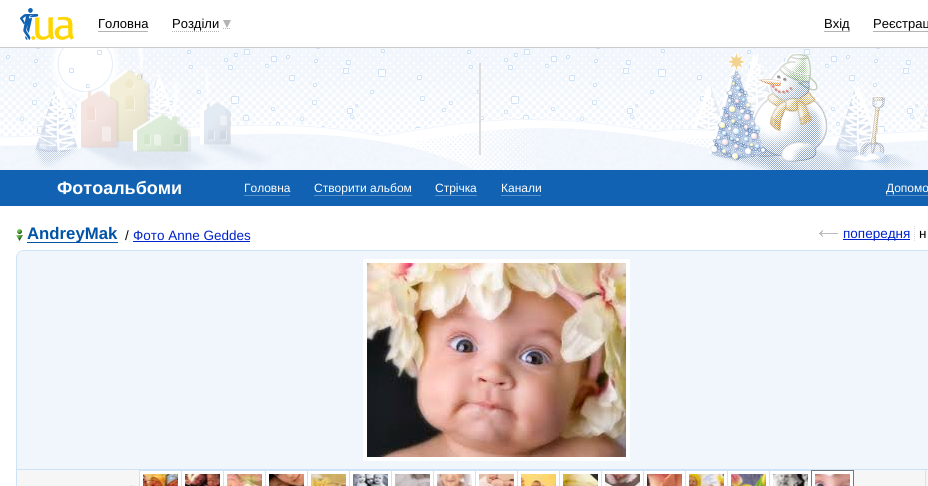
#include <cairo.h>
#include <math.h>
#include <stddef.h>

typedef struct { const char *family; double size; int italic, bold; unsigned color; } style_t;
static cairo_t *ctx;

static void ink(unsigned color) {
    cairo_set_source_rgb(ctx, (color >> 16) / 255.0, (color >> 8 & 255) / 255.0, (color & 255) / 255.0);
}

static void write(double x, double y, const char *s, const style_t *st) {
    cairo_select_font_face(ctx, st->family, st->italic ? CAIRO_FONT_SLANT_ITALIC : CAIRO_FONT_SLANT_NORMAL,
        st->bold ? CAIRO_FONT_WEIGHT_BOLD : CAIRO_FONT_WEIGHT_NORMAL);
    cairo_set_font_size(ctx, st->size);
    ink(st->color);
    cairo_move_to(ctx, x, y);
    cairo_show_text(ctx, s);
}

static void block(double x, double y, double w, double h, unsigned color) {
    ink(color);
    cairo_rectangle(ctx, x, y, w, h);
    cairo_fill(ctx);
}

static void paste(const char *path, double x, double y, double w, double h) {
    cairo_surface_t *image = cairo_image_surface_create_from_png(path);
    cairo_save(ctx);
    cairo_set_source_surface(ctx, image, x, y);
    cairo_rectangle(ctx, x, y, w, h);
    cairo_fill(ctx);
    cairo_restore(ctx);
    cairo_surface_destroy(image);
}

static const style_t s1 = {"Liberation Sans", 13, 0, 0, 0x000000};
static const style_t s2 = {"Liberation Sans", 18, 0, 1, 0xffffff};
static const style_t s3 = {"Liberation Sans", 12, 0, 0, 0xffffff};
static const style_t s4 = {"Liberation Sans", 16.75, 0, 1, 0x0053a5};
static const style_t s5 = {"Liberation Sans", 13.5, 0, 0, 0x000000};
static const style_t s6 = {"Liberation Sans", 13.5, 0, 0, 0x0022cc};

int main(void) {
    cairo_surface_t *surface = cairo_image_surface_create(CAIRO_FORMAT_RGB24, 928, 486);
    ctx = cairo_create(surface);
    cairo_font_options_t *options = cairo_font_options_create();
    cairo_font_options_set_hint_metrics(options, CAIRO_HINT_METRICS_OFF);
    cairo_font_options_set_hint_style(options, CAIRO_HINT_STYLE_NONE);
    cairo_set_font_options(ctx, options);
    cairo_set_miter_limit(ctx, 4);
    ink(0xffffff);
    cairo_paint(ctx);
    block(0, 47, 928, 1, 0xcccccc);
    paste("pic1.png", 20, 8, 54, 32);
    write(98, 28, "Головна", &s1);
    block(98, 31, 50, 1, 0xb3b3b3);
    cairo_new_path(ctx);
    cairo_move_to(ctx, 172, 31.5);
    cairo_line_to(ctx, 219, 31.5);
    cairo_move_to(ctx, 223, 28.5);
    cairo_line_to(ctx, 231, 28.5);
    cairo_set_line_width(ctx, 1);
    cairo_set_dash(ctx, (double[]){1, 1}, 2, 0);
    cairo_stroke(ctx);
    write(172, 28, "Розділи", &s1);
    ink(0xb3b3b3);
    cairo_new_path(ctx);
    cairo_move_to(ctx, 223, 20);
    cairo_line_to(ctx, 231, 20);
    cairo_line_to(ctx, 227, 28);
    cairo_close_path(ctx);
    cairo_fill(ctx);
    write(824, 28, "Вхід", &s1);
    block(824, 31, 26, 1, 0xb3b3b3);
    write(873, 28, "Реєстрац", &s1);
    block(873, 31, 55, 1, 0xb3b3b3);
    paste("pic2.png", 0, 48, 928, 122);
    block(479, 63, 2, 92, 0xdddddd);
    block(0, 170, 928, 36, 0x1162b3);
    write(57, 194, "Фотоальбоми", &s2);
    write(244, 192, "Головна", &s3);
    block(244, 195, 46, 1, 0x5891ca);
    write(314, 192, "Створити альбом", &s3);
    block(314, 195, 98, 1, 0x5891ca);
    write(435, 192, "Стрічка", &s3);
    block(435, 195, 42, 1, 0x5891ca);
    write(501, 192, "Канали", &s3);
    block(501, 195, 40, 1, 0x5891ca);
    write(886, 192, "Допомо", &s3);
    block(886, 195, 42, 1, 0x5891ca);
    block(27, 242, 91, 1, 0x0053a5);
    paste("pic3.png", 16, 229, 7, 12);
    write(27, 239, "AndreyMak", &s4);
    write(125, 240, "/", &s5);
    write(133, 240, "Фото Anne Geddes", &s6);
    block(133, 241, 117, 1, 0x0022cc);
    cairo_new_path(ctx);
    cairo_move_to(ctx, 914.5, 226);
    cairo_line_to(ctx, 914.5, 241);
    ink(0xdddddd);
    cairo_stroke(ctx);
    paste("pic4.png", 819, 230, 19, 7);
    block(843, 239, 67, 1, 0x0022cc);
    write(843, 238, "попередня", &s6);
    write(919, 238, "н", &s5);
    block(17, 251, 911, 218, 0xf0f6fc);
    cairo_rectangle(ctx, 16.5, 250.5, 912, 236);
    ink(0xcee3f7);
    cairo_set_dash(ctx, NULL, 0, 0);
    cairo_stroke(ctx);
    cairo_rectangle(ctx, 365, 261, 263, 198);
    ink(0xffffff);
    cairo_set_line_width(ctx, 4);
    cairo_stroke(ctx);
    paste("pic5.png", 367, 263, 259, 194);
    block(17, 470, 911, 16, 0xf6f6f6);
    block(17, 469, 911, 1, 0xcee3f7);
    block(131, 485, 1, 1, 0xd6d6d6);
    ink(0xffffff);
    cairo_rectangle(ctx, 139.5, 470.5, 42, 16);
    cairo_fill_preserve(ctx);
    ink(0xcee3f7);
    cairo_set_line_width(ctx, 1);
    cairo_stroke(ctx);
    paste("pic6.png", 143, 474, 35, 12);
    ink(0xffffff);
    cairo_rectangle(ctx, 181.5, 470.5, 42, 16);
    cairo_fill_preserve(ctx);
    ink(0xcee3f7);
    cairo_stroke(ctx);
    paste("pic7.png", 185, 474, 35, 12);
    ink(0xffffff);
    cairo_rectangle(ctx, 223.5, 470.5, 42, 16);
    cairo_fill_preserve(ctx);
    ink(0xcee3f7);
    cairo_stroke(ctx);
    paste("pic8.png", 227, 474, 35, 12);
    ink(0xffffff);
    cairo_rectangle(ctx, 265.5, 470.5, 42, 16);
    cairo_fill_preserve(ctx);
    ink(0xcee3f7);
    cairo_stroke(ctx);
    paste("pic9.png", 269, 474, 35, 12);
    ink(0xffffff);
    cairo_rectangle(ctx, 307.5, 470.5, 42, 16);
    cairo_fill_preserve(ctx);
    ink(0xcee3f7);
    cairo_stroke(ctx);
    paste("pic10.png", 311, 474, 35, 12);
    ink(0xffffff);
    cairo_rectangle(ctx, 349.5, 470.5, 42, 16);
    cairo_fill_preserve(ctx);
    ink(0xcee3f7);
    cairo_stroke(ctx);
    paste("pic11.png", 353, 474, 35, 12);
    ink(0xffffff);
    cairo_rectangle(ctx, 391.5, 470.5, 42, 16);
    cairo_fill_preserve(ctx);
    ink(0xcee3f7);
    cairo_stroke(ctx);
    paste("pic12.png", 395, 474, 35, 12);
    ink(0xffffff);
    cairo_rectangle(ctx, 433.5, 470.5, 42, 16);
    cairo_fill_preserve(ctx);
    ink(0xcee3f7);
    cairo_stroke(ctx);
    paste("pic13.png", 437, 474, 35, 12);
    ink(0xffffff);
    cairo_rectangle(ctx, 475.5, 470.5, 42, 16);
    cairo_fill_preserve(ctx);
    ink(0xcee3f7);
    cairo_stroke(ctx);
    paste("pic14.png", 479, 474, 35, 12);
    ink(0xffffff);
    cairo_rectangle(ctx, 517.5, 470.5, 42, 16);
    cairo_fill_preserve(ctx);
    ink(0xcee3f7);
    cairo_stroke(ctx);
    paste("pic15.png", 521, 474, 35, 12);
    ink(0xffffff);
    cairo_rectangle(ctx, 559.5, 470.5, 42, 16);
    cairo_fill_preserve(ctx);
    ink(0xcee3f7);
    cairo_stroke(ctx);
    paste("pic16.png", 563, 474, 35, 12);
    ink(0xffffff);
    cairo_rectangle(ctx, 601.5, 470.5, 42, 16);
    cairo_fill_preserve(ctx);
    ink(0xcee3f7);
    cairo_stroke(ctx);
    paste("pic17.png", 605, 474, 35, 12);
    ink(0xffffff);
    cairo_rectangle(ctx, 643.5, 470.5, 42, 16);
    cairo_fill_preserve(ctx);
    ink(0xcee3f7);
    cairo_stroke(ctx);
    paste("pic18.png", 647, 474, 35, 12);
    ink(0xffffff);
    cairo_rectangle(ctx, 685.5, 470.5, 42, 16);
    cairo_fill_preserve(ctx);
    ink(0xcee3f7);
    cairo_stroke(ctx);
    paste("pic19.png", 689, 474, 35, 12);
    ink(0xffffff);
    cairo_rectangle(ctx, 727.5, 470.5, 42, 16);
    cairo_fill_preserve(ctx);
    ink(0xcee3f7);
    cairo_stroke(ctx);
    paste("pic20.png", 731, 474, 35, 12);
    ink(0xffffff);
    cairo_rectangle(ctx, 769.5, 470.5, 42, 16);
    cairo_fill_preserve(ctx);
    ink(0xcee3f7);
    cairo_stroke(ctx);
    paste("pic21.png", 773, 474, 35, 12);
    ink(0xffffff);
    cairo_rectangle(ctx, 811.5, 470.5, 42, 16);
    cairo_fill_preserve(ctx);
    ink(0x777777);
    cairo_stroke(ctx);
    paste("pic22.png", 815, 474, 35, 12);
    cairo_rectangle(ctx, 925.5, 469.5, 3, 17);
    ink(0xcee3f7);
    cairo_stroke(ctx);
    paste("pic23.png", 16, 250, 7, 7);
    cairo_surface_write_to_png(surface, "screenshot.png");
    cairo_font_options_destroy(options);
    cairo_destroy(ctx);
    cairo_surface_destroy(surface);
    return 0;
}
